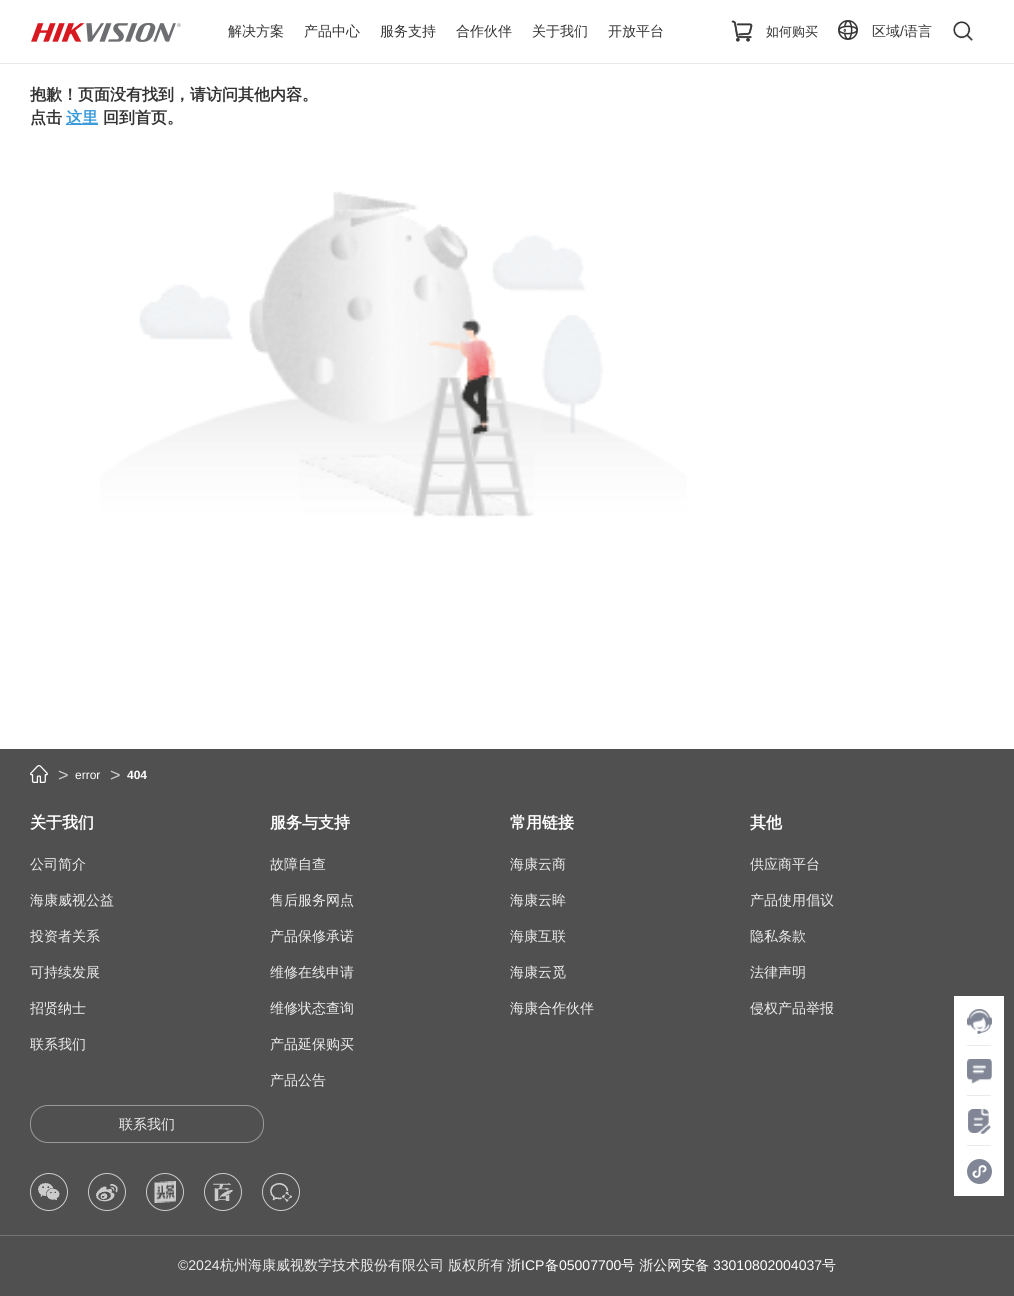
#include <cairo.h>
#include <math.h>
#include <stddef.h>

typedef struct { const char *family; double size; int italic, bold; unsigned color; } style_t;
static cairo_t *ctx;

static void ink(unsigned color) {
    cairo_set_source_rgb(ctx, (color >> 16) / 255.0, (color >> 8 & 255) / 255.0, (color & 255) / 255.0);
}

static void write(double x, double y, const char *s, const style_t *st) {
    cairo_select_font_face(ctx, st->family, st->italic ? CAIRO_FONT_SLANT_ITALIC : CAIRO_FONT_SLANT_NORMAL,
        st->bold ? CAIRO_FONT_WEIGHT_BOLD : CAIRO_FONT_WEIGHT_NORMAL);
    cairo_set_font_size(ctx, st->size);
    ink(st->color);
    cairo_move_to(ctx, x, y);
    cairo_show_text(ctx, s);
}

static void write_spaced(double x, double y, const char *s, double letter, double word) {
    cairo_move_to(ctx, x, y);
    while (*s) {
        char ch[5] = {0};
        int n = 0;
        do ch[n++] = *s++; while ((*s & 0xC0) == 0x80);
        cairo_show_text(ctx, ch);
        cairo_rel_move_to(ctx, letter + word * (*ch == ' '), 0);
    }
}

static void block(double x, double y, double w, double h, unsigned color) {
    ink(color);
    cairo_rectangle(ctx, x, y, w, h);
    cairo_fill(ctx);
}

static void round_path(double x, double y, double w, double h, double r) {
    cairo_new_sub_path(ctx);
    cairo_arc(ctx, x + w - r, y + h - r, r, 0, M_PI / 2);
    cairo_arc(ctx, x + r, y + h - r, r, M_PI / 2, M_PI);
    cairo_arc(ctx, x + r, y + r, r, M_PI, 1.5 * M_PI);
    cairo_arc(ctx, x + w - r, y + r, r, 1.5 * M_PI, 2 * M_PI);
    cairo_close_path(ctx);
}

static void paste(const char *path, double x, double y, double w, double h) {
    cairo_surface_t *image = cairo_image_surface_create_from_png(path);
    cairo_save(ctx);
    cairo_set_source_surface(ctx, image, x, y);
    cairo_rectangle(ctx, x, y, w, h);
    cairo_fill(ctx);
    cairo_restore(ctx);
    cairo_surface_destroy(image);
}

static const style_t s1 = {"WenQuanYi Zen Hei Medium", 14, 0, 0, 0x333333};
static const style_t s2 = {"WenQuanYi Zen Hei Medium", 13, 0, 0, 0x333333};
static const style_t s3 = {"Liberation Sans", 14, 0, 0, 0x333333};
static const style_t s4 = {"WenQuanYi Zen Hei", 16, 0, 1, 0x333333};
static const style_t s5 = {"WenQuanYi Zen Hei", 16, 0, 1, 0x3598db};
static const style_t s6 = {"Liberation Sans", 12, 0, 0, 0xffffff};
static const style_t s7 = {"Liberation Sans", 12, 0, 1, 0xffffff};
static const style_t s8 = {"WenQuanYi Zen Hei", 16, 0, 1, 0xffffff};
static const style_t s9 = {"WenQuanYi Zen Hei Medium", 14, 0, 0, 0xededed};
static const style_t s10 = {"Liberation Sans", 14, 0, 0, 0xededed};
static const style_t s11 = {"WenQuanYi Zen Hei Medium", 14, 0, 0, 0xffffff};
static const style_t s12 = {"Liberation Sans", 14, 0, 0, 0xffffff};

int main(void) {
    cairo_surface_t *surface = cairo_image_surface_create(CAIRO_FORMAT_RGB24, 1014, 1296);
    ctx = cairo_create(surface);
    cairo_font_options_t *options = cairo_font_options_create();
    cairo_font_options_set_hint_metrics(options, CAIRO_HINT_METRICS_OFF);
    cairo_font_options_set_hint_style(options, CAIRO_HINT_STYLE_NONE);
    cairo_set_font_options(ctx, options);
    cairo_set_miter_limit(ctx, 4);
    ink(0xffffff);
    cairo_paint(ctx);
    block(0, 63, 1014, 1, 0xeaeaea);
    paste("pic1.png", 31, 23, 150, 19);
    write(228, 36, "解决方案", &s1);
    write(304, 36, "产品中心", &s1);
    write(380, 36, "服务支持", &s1);
    write(456, 36, "合作伙伴", &s1);
    write(532, 36, "关于我们", &s1);
    write(608, 36, "开放平台", &s1);
    paste("pic2.png", 731, 20, 22, 22);
    write(766, 36, "如何购买", &s2);
    paste("pic3.png", 838, 20, 20, 20);
    write(872, 36, "区域", &s1);
    write(900, 36, "/", &s3);
    write(904, 36, "语言", &s1);
    paste("pic4.png", 953, 21, 20, 20);
    write(30, 100, "抱歉！页面没有找到，请访问其他内容。", &s4);
    write(30, 123, "点击", &s4);
    block(66, 124, 32, 1, 0x3598db);
    write(66, 123, "这里", &s5);
    write(103, 123, "回到首页。", &s4);
    paste("pic5.png", 100, 191, 587, 327);
    block(0, 749, 1014, 547, 0x505050);
    paste("pic6.png", 30, 765, 18, 18);
    cairo_select_font_face(ctx, "Liberation Sans", CAIRO_FONT_SLANT_NORMAL, CAIRO_FONT_WEIGHT_NORMAL);
    cairo_set_font_size(ctx, 18);
    ink(0xcccccc);
    write_spaced(58, 781, ">", -4, 0);
    write(75, 779, "error", &s6);
    cairo_set_font_size(ctx, 18);
    ink(0xcccccc);
    write_spaced(110, 781, ">", -4, 0);
    write(127, 779, "404", &s7);
    write(30, 828, "关于我们", &s8);
    write(30, 869, "公司简介", &s9);
    write(30, 905, "海康威视公益", &s9);
    write(30, 941, "投资者关系", &s9);
    write(30, 977, "可持续发展", &s9);
    write(30, 1013, "招贤纳士", &s9);
    write(30, 1049, "联系我们", &s9);
    write(270, 828, "服务与支持", &s8);
    write(270, 869, "故障自查", &s9);
    write(270, 905, "售后服务网点", &s9);
    write(270, 941, "产品保修承诺", &s9);
    write(270, 977, "维修在线申请", &s9);
    write(270, 1013, "维修状态查询", &s9);
    write(270, 1049, "产品延保购买", &s9);
    write(270, 1085, "产品公告", &s9);
    write(510, 828, "常用链接", &s8);
    write(510, 869, "海康云商", &s9);
    write(510, 905, "海康云眸", &s9);
    write(510, 941, "海康互联", &s9);
    write(510, 977, "海康云觅", &s9);
    write(510, 1013, "海康合作伙伴", &s9);
    write(750, 828, "其他", &s8);
    write(750, 869, "供应商平台", &s9);
    write(750, 905, "产品使用倡议", &s9);
    write(750, 941, "隐私条款", &s9);
    write(750, 977, "法律声明", &s9);
    write(750, 1013, "侵权产品举报", &s9);
    round_path(30.5, 1105.5, 233, 37, 17.5);
    ink(0x999999);
    cairo_set_line_width(ctx, 1);
    cairo_stroke(ctx);
    write(119, 1129, "联系我们", &s9);
    paste("pic7.png", 38, 1183, 22, 17);
    cairo_arc(ctx, 49, 1192, 18.5, 0, 2 * M_PI);
    ink(0xcbcbcb);
    cairo_stroke(ctx);
    paste("pic8.png", 96, 1184, 22, 18);
    cairo_arc(ctx, 107, 1192, 18.5, 0, 2 * M_PI);
    cairo_stroke(ctx);
    paste("pic9.png", 154, 1181, 22, 22);
    cairo_arc(ctx, 165, 1192, 18.5, 0, 2 * M_PI);
    cairo_stroke(ctx);
    paste("pic10.png", 213, 1183, 20, 18);
    cairo_arc(ctx, 223, 1192, 18.5, 0, 2 * M_PI);
    cairo_stroke(ctx);
    paste("pic11.png", 270, 1183, 22, 19);
    cairo_arc(ctx, 281, 1192, 18.5, 0, 2 * M_PI);
    cairo_stroke(ctx);
    block(0, 1235, 1014, 1, 0x737373);
    write(178, 1270, "©2024", &s10);
    write(220, 1270, "杭州海康威视数字技术股份有限公司 版权所有", &s9);
    write(507, 1270, "浙", &s11);
    write(521, 1270, "ICP", &s12);
    write(545, 1270, "备", &s11);
    write(559, 1270, "05007700", &s12);
    write(621, 1270, "号 浙公网安备", &s11);
    write(713, 1270, "33010802004037", &s12);
    write(822, 1270, "号", &s11);
    block(954, 996, 50, 200, 0xffffff);
    paste("pic12.png", 967, 1009, 25, 25);
    block(967, 1045, 24, 1, 0xeaeaea);
    paste("pic13.png", 967, 1059, 25, 25);
    block(967, 1095, 24, 1, 0xeaeaea);
    paste("pic14.png", 968, 1109, 23, 25);
    block(967, 1145, 24, 1, 0xeaeaea);
    paste("pic15.png", 967, 1159, 25, 25);
    cairo_surface_write_to_png(surface, "screenshot.png");
    cairo_font_options_destroy(options);
    cairo_destroy(ctx);
    cairo_surface_destroy(surface);
    return 0;
}
